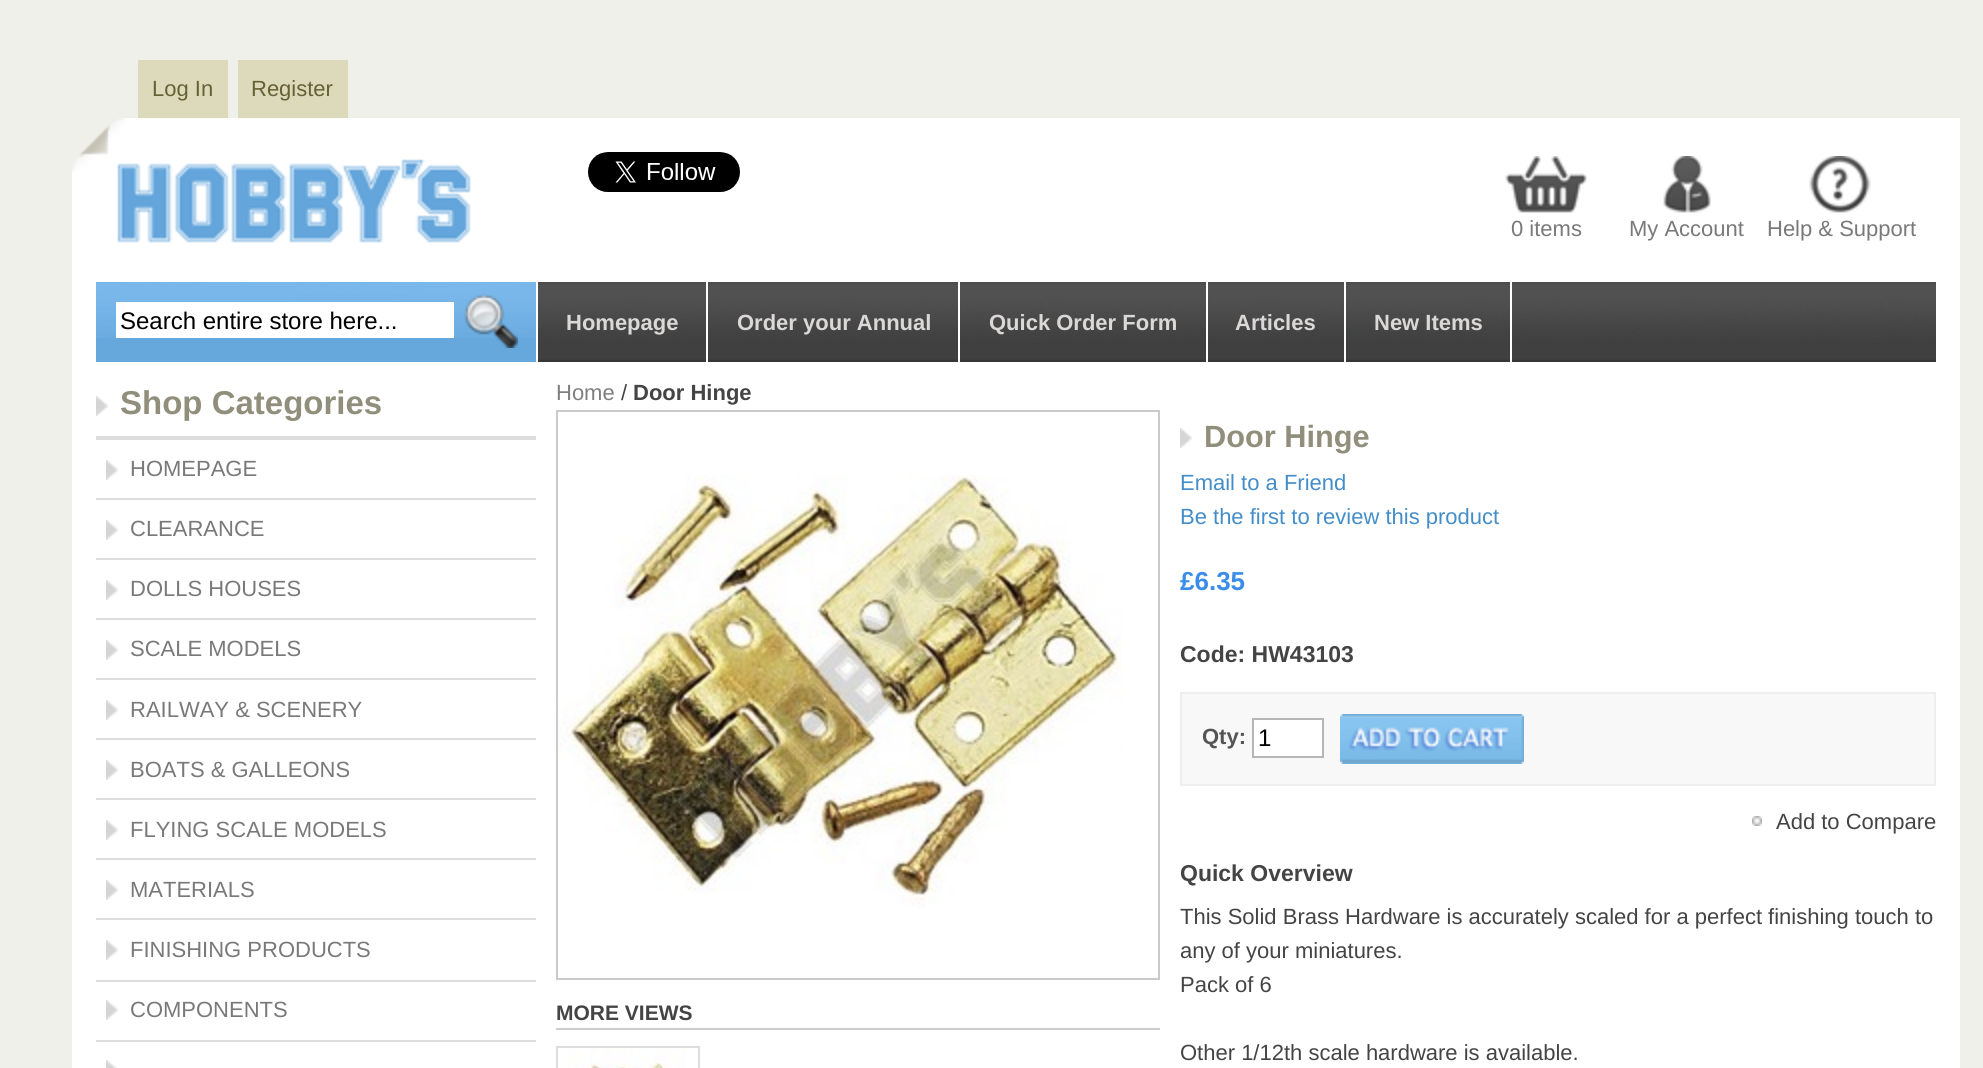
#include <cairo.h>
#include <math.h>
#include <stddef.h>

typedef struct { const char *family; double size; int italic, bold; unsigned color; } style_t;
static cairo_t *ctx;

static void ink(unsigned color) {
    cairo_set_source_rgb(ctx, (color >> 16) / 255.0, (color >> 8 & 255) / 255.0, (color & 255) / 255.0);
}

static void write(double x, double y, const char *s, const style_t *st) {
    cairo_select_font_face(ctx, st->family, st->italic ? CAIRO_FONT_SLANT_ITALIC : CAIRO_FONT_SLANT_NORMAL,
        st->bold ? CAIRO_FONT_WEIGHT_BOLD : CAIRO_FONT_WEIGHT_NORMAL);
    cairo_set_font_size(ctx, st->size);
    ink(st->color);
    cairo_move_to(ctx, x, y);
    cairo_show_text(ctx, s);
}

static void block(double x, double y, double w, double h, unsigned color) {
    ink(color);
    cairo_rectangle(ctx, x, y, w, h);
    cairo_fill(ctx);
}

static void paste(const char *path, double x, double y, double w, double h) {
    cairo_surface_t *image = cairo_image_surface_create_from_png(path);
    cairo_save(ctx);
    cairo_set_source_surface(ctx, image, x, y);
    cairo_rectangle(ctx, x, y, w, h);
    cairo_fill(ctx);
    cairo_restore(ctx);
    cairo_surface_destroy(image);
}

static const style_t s1 = {"Liberation Sans", 22, 0, 0, 0x666134};
static const style_t s2 = {"Liberation Sans", 22, 0, 0, 0x797979};
static const style_t s3 = {"Liberation Sans", 24, 0, 0, 0x000000};
static const style_t s4 = {"Liberation Sans", 22, 0, 1, 0xdbd8d8};
static const style_t s5 = {"Liberation Sans", 33, 0, 1, 0x918f7b};
static const style_t s6 = {"Liberation Sans", 22, 0, 0, 0x7f7f7f};
static const style_t s7 = {"Liberation Sans", 22, 0, 0, 0x444444};
static const style_t s8 = {"Liberation Sans", 22, 0, 1, 0x444444};
static const style_t s9 = {"Liberation Sans", 21, 0, 1, 0x444444};
static const style_t s10 = {"Liberation Sans", 30.75, 0, 1, 0x918f7b};
static const style_t s11 = {"Liberation Sans", 22, 0, 0, 0x438dc9};
static const style_t s12 = {"Liberation Sans", 26, 0, 1, 0x3a8de9};
static const style_t s13 = {"Liberation Sans", 23, 0, 1, 0x444444};
static const style_t s14 = {"Liberation Sans", 22, 0, 1, 0x555555};

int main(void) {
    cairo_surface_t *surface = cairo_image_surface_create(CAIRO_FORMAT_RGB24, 1983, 1068);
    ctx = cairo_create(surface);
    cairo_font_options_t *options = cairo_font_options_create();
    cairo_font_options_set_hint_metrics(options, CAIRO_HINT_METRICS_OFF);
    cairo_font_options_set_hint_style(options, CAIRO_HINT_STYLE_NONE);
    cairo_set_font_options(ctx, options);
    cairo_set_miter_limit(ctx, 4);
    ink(0xf0f0ea);
    cairo_paint(ctx);
    block(138, 60, 90, 58, 0xdddabb);
    write(152, 96, "Log In", &s1);
    block(238, 60, 110, 58, 0xdddabb);
    write(251, 96, "Register", &s1);
    block(72, 118, 1888, 950, 0xffffff);
    paste("pic1.png", 72, 118, 54, 54);
    paste("pic2.png", 117, 159, 354, 84);
    paste("pic3.png", 588, 152, 152, 40);
    paste("pic4.png", 1505, 156, 82, 57);
    write(1511, 236, "0 items", &s2);
    paste("pic5.png", 1663, 156, 48, 57);
    write(1629, 236, "My Account", &s2);
    paste("pic6.png", 1809, 156, 62, 57);
    write(1767, 236, "Help & Support", &s2);
    paste("pic7.png", 538, 282, 1398, 80);
    block(96, 338, 440, 24, 0x66a7dc);
    paste("pic8.png", 96, 282, 440, 56);
    block(116, 302, 338, 36, 0xffffff);
    write(120, 329, "Search entire store here...", &s3);
    paste("pic9.png", 464, 294, 54, 54);
    block(706, 282, 2, 80, 0xffffff);
    write(566, 330, "Homepage", &s4);
    block(958, 282, 2, 80, 0xffffff);
    write(737, 330, "Order your Annual", &s4);
    block(1206, 282, 2, 80, 0xffffff);
    write(989, 330, "Quick Order Form", &s4);
    block(1344, 282, 2, 80, 0xffffff);
    write(1235, 330, "Articles", &s4);
    block(1510, 282, 2, 80, 0xffffff);
    write(1374, 330, "New Items", &s4);
    paste("pic10.png", 96, 396, 12, 20);
    block(96, 436, 440, 4, 0xdddddd);
    write(120, 414, "Shop Categories", &s5);
    block(96, 498, 440, 2, 0xdddddd);
    paste("pic11.png", 106, 460, 12, 20);
    write(130, 476, "HOMEPAGE", &s2);
    block(96, 558, 440, 2, 0xdddddd);
    paste("pic11.png", 106, 520, 12, 20);
    write(130, 536, "CLEARANCE", &s2);
    block(96, 618, 440, 2, 0xdddddd);
    paste("pic11.png", 106, 580, 12, 20);
    write(130, 596, "DOLLS HOUSES", &s2);
    block(96, 678, 440, 2, 0xdddddd);
    paste("pic11.png", 106, 640, 12, 20);
    write(130, 656, "SCALE MODELS", &s2);
    block(96, 738, 440, 2, 0xdddddd);
    paste("pic11.png", 106, 700, 12, 20);
    write(130, 717, "RAILWAY & SCENERY", &s2);
    block(96, 798, 440, 2, 0xdddddd);
    paste("pic11.png", 106, 760, 12, 20);
    write(130, 777, "BOATS & GALLEONS", &s2);
    block(96, 858, 440, 2, 0xdddddd);
    paste("pic11.png", 106, 820, 12, 20);
    write(130, 837, "FLYING SCALE MODELS", &s2);
    block(96, 918, 440, 2, 0xdddddd);
    paste("pic11.png", 106, 880, 12, 20);
    write(130, 897, "MATERIALS", &s2);
    block(96, 980, 440, 2, 0xdddddd);
    paste("pic11.png", 106, 940, 12, 20);
    write(130, 957, "FINISHING PRODUCTS", &s2);
    block(96, 1040, 440, 2, 0xdddddd);
    paste("pic11.png", 106, 1000, 12, 20);
    write(130, 1017, "COMPONENTS", &s2);
    paste("pic12.png", 106, 1060, 11, 8);
    write(556, 400, "Home", &s6);
    write(621, 400, "/", &s7);
    write(633, 400, "Door Hinge", &s8);
    cairo_rectangle(ctx, 557, 411, 602, 568);
    ink(0xcacaca);
    cairo_stroke(ctx);
    paste("pic13.png", 558, 475, 565, 433);
    block(556, 1028, 604, 2, 0xcccccc);
    write(556, 1020, "MORE VIEWS", &s9);
    cairo_rectangle(ctx, 557, 1047, 142, 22);
    ink(0xdddddd);
    cairo_stroke(ctx);
    paste("pic14.png", 567, 1048, 119, 20);
    paste("pic10.png", 1180, 428, 12, 20);
    write(1204, 447, "Door Hinge", &s10);
    write(1180, 490, "Email to a Friend", &s11);
    write(1180, 524, "Be the first to review this product", &s11);
    write(1180, 590, "£6.35", &s12);
    write(1180, 662, "Code: HW43103", &s13);
    ink(0xf8f8f8);
    cairo_rectangle(ctx, 1181, 693, 754, 92);
    cairo_fill_preserve(ctx);
    ink(0xeeeeee);
    cairo_stroke(ctx);
    write(1202, 744, "Qty:", &s14);
    ink(0xffffff);
    cairo_rectangle(ctx, 1253, 719, 70, 38);
    cairo_fill_preserve(ctx);
    ink(0xb6b6b6);
    cairo_stroke(ctx);
    write(1258, 746, "1", &s3);
    paste("pic15.png", 1340, 714, 184, 50);
    paste("pic16.png", 1752, 816, 10, 10);
    write(1776, 829, "Add to Compare", &s7);
    write(1180, 881, "Quick Overview", &s13);
    write(1180, 924, "This Solid Brass Hardware is accurately scaled for a perfect finishing touch to", &s7);
    write(1180, 958, "any of your miniatures.", &s7);
    write(1180, 992, "Pack of 6", &s7);
    write(1180, 1060, "Other 1/12th scale hardware is available.", &s7);
    cairo_surface_write_to_png(surface, "screenshot.png");
    cairo_font_options_destroy(options);
    cairo_destroy(ctx);
    cairo_surface_destroy(surface);
    return 0;
}
